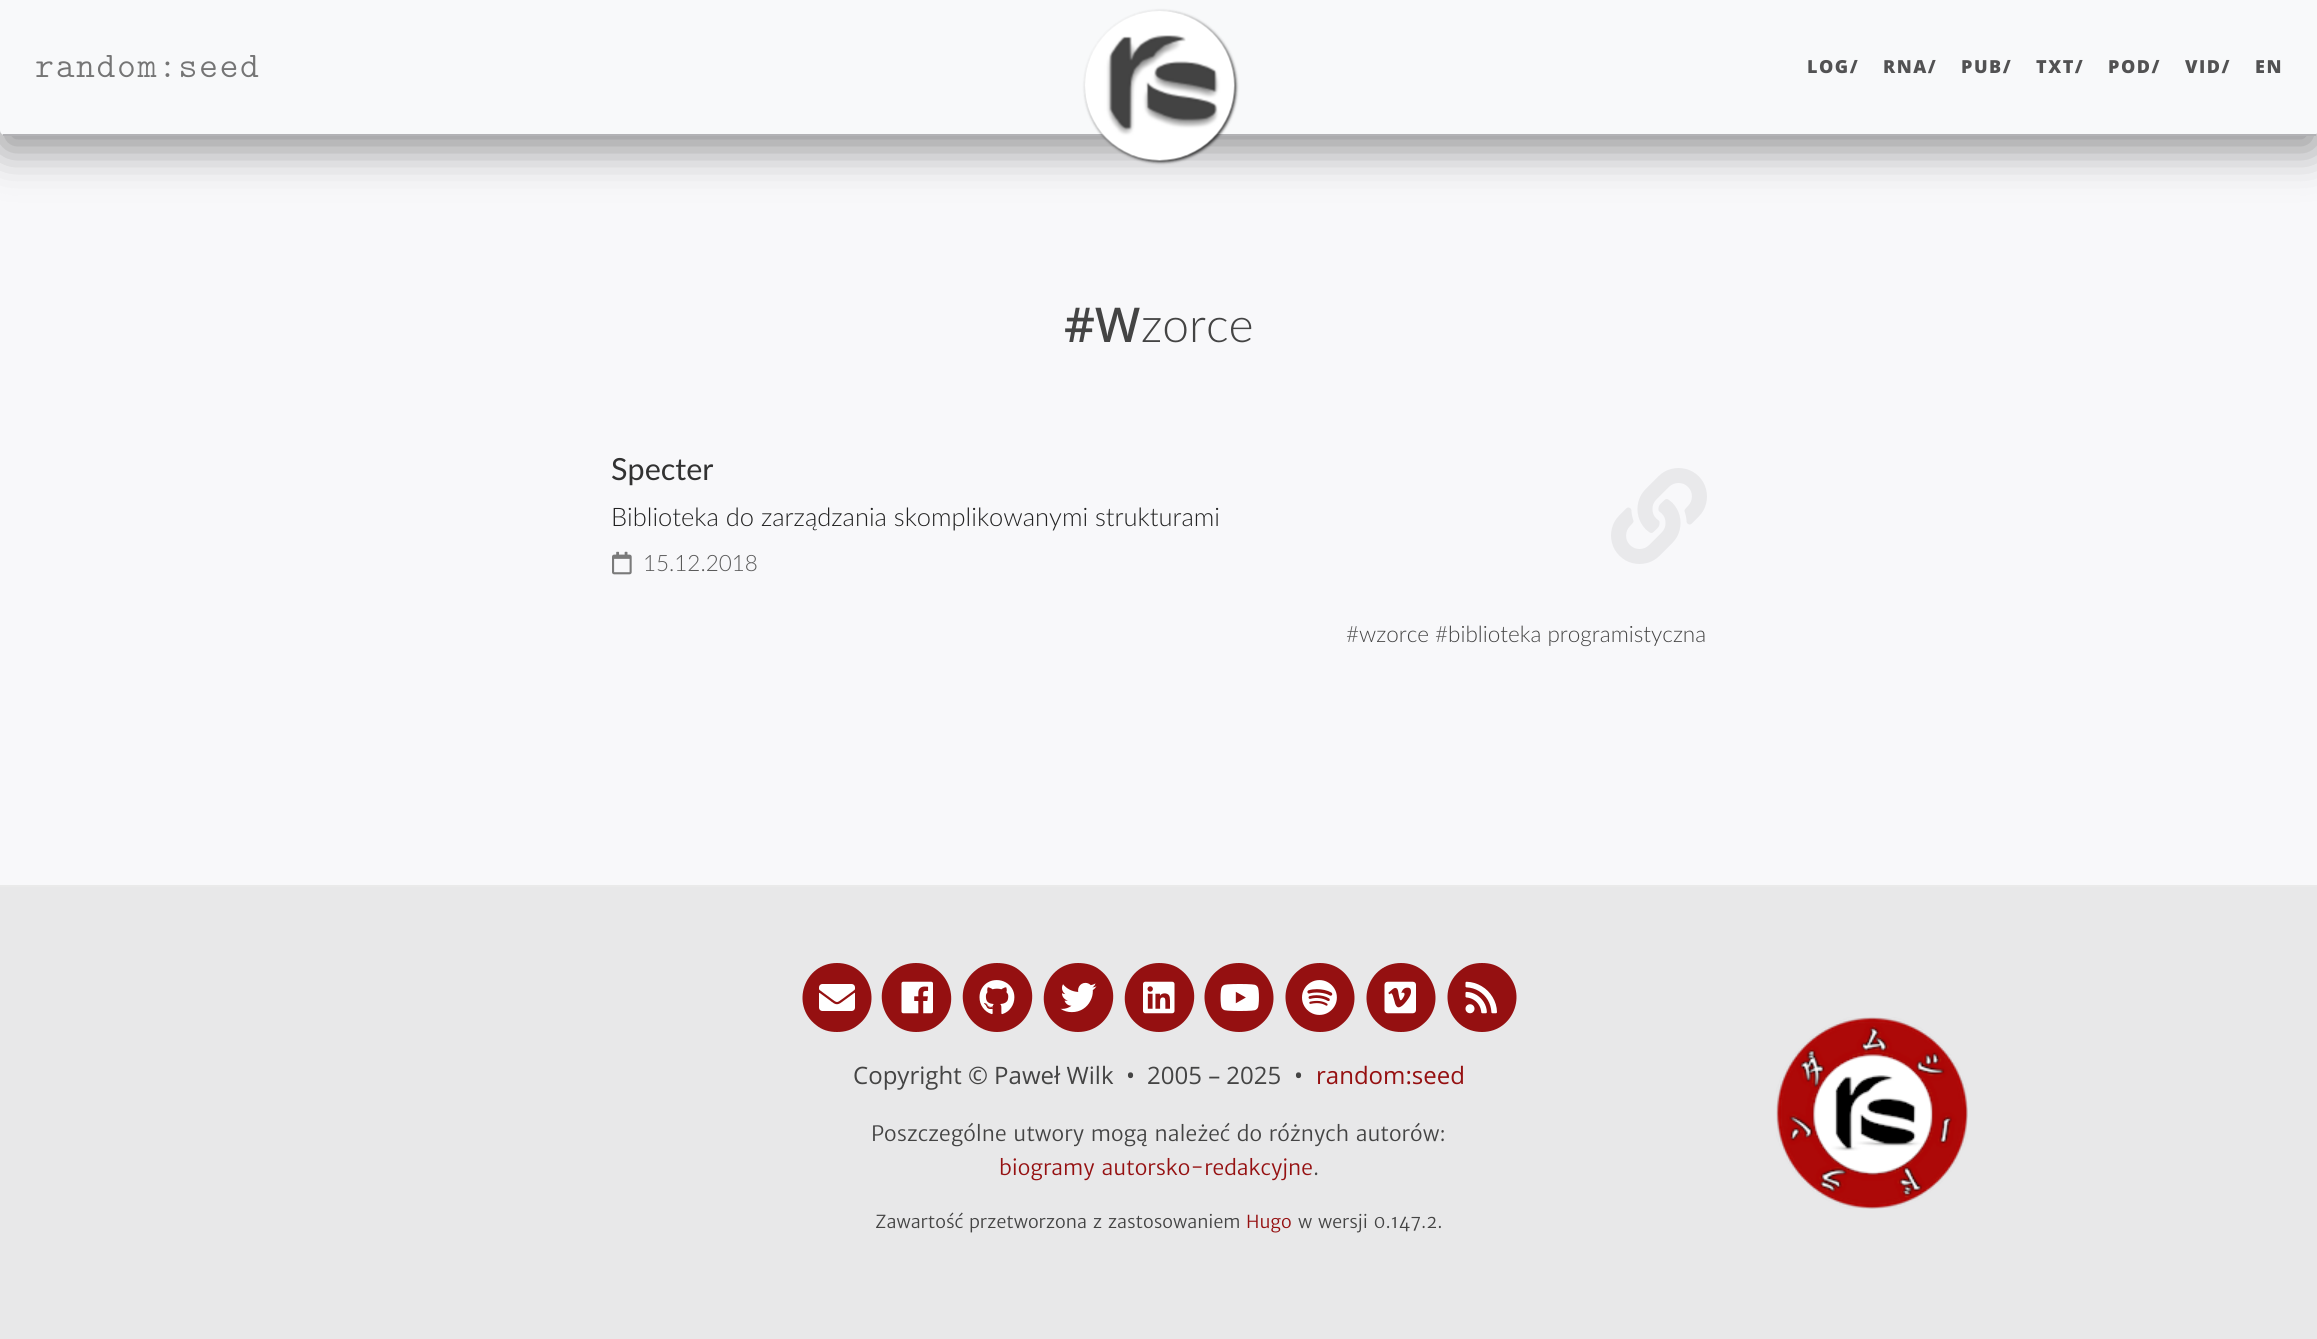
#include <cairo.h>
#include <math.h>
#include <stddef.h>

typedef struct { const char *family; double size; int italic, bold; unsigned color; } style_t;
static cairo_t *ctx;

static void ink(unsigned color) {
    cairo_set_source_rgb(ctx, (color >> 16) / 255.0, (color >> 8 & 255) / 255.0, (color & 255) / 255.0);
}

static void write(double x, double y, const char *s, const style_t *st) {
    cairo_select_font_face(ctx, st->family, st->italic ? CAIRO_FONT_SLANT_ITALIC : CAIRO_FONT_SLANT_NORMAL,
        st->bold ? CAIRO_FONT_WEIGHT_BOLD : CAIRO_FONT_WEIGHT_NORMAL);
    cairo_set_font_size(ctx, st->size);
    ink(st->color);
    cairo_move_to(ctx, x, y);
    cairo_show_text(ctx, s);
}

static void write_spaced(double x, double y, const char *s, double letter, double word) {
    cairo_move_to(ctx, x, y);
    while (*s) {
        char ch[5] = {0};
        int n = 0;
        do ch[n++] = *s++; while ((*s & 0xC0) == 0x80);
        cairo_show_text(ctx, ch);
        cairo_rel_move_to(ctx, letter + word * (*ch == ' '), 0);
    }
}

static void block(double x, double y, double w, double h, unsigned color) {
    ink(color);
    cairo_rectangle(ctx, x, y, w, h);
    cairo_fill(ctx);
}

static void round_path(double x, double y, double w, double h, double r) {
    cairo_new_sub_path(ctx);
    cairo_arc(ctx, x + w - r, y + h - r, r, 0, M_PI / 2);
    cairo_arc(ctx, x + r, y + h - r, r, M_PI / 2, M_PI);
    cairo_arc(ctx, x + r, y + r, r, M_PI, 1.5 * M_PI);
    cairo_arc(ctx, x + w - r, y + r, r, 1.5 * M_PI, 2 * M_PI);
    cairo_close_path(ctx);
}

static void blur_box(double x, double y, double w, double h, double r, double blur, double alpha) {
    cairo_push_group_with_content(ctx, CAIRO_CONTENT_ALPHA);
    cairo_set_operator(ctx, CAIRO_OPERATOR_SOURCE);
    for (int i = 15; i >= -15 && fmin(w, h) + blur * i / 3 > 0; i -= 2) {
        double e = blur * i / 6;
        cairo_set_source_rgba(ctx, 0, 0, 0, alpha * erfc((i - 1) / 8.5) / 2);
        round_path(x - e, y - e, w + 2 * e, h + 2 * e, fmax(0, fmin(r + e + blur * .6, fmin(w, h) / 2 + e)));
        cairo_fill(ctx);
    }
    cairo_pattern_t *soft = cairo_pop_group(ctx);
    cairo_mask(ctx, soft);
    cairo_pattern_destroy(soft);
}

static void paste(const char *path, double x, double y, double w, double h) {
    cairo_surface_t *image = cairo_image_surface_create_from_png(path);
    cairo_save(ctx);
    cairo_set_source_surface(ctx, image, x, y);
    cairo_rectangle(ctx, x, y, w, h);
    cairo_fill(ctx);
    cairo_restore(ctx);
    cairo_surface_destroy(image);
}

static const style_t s1 = {"Noto Sans Medium", 48, 0, 0, 0x444444};
static const style_t s2 = {"Lato Light", 48, 0, 0, 0x444444};
static const style_t s3 = {"Lato", 30.5, 0, 0, 0x323232};
static const style_t s4 = {"Lato Light", 25.5, 0, 0, 0x222222};
static const style_t s5 = {"Lato Light", 22.5, 0, 0, 0x5a5a5a};
static const style_t s6 = {"Lato Light", 22.5, 0, 0, 0x444444};
static const style_t s7 = {"Open Sans", 24, 0, 0, 0x444444};
static const style_t s8 = {"Open Sans", 24, 0, 0, 0x951011};
static const style_t s9 = {"Merriweather Sans", 21, 0, 0, 0x444444};
static const style_t s10 = {"Merriweather Sans", 21, 0, 0, 0x951011};
static const style_t s11 = {"Merriweather Sans", 17.85, 0, 0, 0x444444};
static const style_t s12 = {"Merriweather Sans", 17.85, 0, 0, 0x951011};

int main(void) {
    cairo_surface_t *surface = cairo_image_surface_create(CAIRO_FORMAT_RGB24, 2317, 1339);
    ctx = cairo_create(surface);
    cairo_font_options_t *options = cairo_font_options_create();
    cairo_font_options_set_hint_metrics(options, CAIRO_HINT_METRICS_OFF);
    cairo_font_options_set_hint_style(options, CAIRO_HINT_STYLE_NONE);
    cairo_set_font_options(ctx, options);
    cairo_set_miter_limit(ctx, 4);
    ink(0xf8f8fa);
    cairo_paint(ctx);
    ink(0x161616);
    blur_box(0, 15, 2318, 135, 5, 21, 0.45);
    ink(0xf8f9fa);
    cairo_new_path(ctx);
    cairo_move_to(ctx, 0, 0);
    cairo_line_to(ctx, 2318, 0);
    cairo_line_to(ctx, 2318, 130);
    cairo_curve_to(ctx, 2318, 133, 2316, 135, 2313, 135);
    cairo_line_to(ctx, 5, 135);
    cairo_curve_to(ctx, 2, 135, 0, 133, 0, 130);
    cairo_close_path(ctx);
    cairo_fill(ctx);
    block(3, 134, 2313, 2, 0xb2b2b5);
    cairo_select_font_face(ctx, "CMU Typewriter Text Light", CAIRO_FONT_SLANT_NORMAL, CAIRO_FONT_WEIGHT_NORMAL);
    cairo_set_font_size(ctx, 36);
    ink(0x757575);
    write_spaced(35, 77, "random:seed", 1.6, 0);
    ink(0x000000);
    blur_box(1086, 12, 150, 150, 75, 1.5, 0.8);
    paste("pic1.png", 1084, 10, 151, 151);
    cairo_select_font_face(ctx, "Open Sans ExtraBold", CAIRO_FONT_SLANT_NORMAL, CAIRO_FONT_WEIGHT_NORMAL);
    cairo_set_font_size(ctx, 18);
    ink(0x525253);
    write_spaced(1807, 73, "LOG/", 1.5, 0);
    write_spaced(1883, 73, "RNA/", 1.5, 0);
    write_spaced(1961, 73, "PUB/", 1.5, 0);
    write_spaced(2036, 73, "TXT/", 1.5, 0);
    write_spaced(2108, 73, "POD/", 1.5, 0);
    write_spaced(2185, 73, "VID/", 1.5, 0);
    write_spaced(2255, 73, "EN", 1.5, 0);
    write(1064, 342, "#W", &s1);
    write(1141, 342, "zorce", &s2);
    write(611, 480, "Specter", &s3);
    write(611, 526, "Biblioteka do zarządzania skomplikowanymi strukturami", &s4);
    paste("pic2.png", 612, 551, 20, 24);
    write(643, 571, "15.12.2018", &s5);
    paste("pic3.png", 1611, 468, 96, 96);
    write(1346, 642, "#", &s5);
    write(1359, 642, "wzorce", &s6);
    write(1435, 642, "#", &s5);
    write(1448, 642, "biblioteka programistyczna", &s6);
    block(0, 887, 2317, 452, 0xe8e8e9);
    block(0, 885, 2317, 2, 0xeaeaea);
    ink(0x951011);
    cairo_new_path(ctx);
    cairo_move_to(ctx, 837, 963);
    cairo_curve_to(ctx, 804, 963, 790, 1005, 816, 1025);
    cairo_curve_to(ctx, 822, 1030, 829, 1032, 837, 1032);
    cairo_curve_to(ctx, 845, 1032, 852, 1030, 858, 1025);
    cairo_curve_to(ctx, 884, 1005, 870, 963, 837, 963);
    cairo_close_path(ctx);
    cairo_fill(ctx);
    paste("pic4.png", 819, 984, 36, 27);
    cairo_new_path(ctx);
    cairo_move_to(ctx, 916, 963);
    cairo_curve_to(ctx, 909, 963, 901, 965, 895, 970);
    cairo_curve_to(ctx, 869, 990, 884, 1032, 916, 1032);
    cairo_curve_to(ctx, 924, 1032, 932, 1030, 938, 1025);
    cairo_curve_to(ctx, 964, 1005, 949, 963, 916, 963);
    cairo_close_path(ctx);
    cairo_fill(ctx);
    paste("pic5.png", 901, 981, 32, 33);
    cairo_new_path(ctx);
    cairo_move_to(ctx, 997, 963);
    cairo_curve_to(ctx, 990, 963, 982, 965, 976, 970);
    cairo_curve_to(ctx, 950, 990, 965, 1032, 997, 1032);
    cairo_curve_to(ctx, 1030, 1032, 1045, 990, 1019, 970);
    cairo_curve_to(ctx, 1013, 965, 1005, 963, 997, 963);
    cairo_close_path(ctx);
    cairo_fill(ctx);
    paste("pic6.png", 979, 980, 36, 35);
    cairo_new_path(ctx);
    cairo_move_to(ctx, 1078, 963);
    cairo_curve_to(ctx, 1046, 963, 1031, 1005, 1057, 1025);
    cairo_curve_to(ctx, 1063, 1030, 1071, 1032, 1078, 1032);
    cairo_curve_to(ctx, 1111, 1032, 1126, 990, 1100, 970);
    cairo_curve_to(ctx, 1094, 965, 1086, 963, 1078, 963);
    cairo_close_path(ctx);
    cairo_fill(ctx);
    paste("pic7.png", 1060, 982, 37, 31);
    cairo_new_path(ctx);
    cairo_move_to(ctx, 1159, 963);
    cairo_curve_to(ctx, 1127, 963, 1112, 1005, 1138, 1025);
    cairo_curve_to(ctx, 1144, 1030, 1152, 1032, 1159, 1032);
    cairo_curve_to(ctx, 1192, 1032, 1207, 990, 1181, 970);
    cairo_curve_to(ctx, 1175, 965, 1167, 963, 1159, 963);
    cairo_close_path(ctx);
    cairo_fill(ctx);
    paste("pic8.png", 1143, 981, 32, 33);
    cairo_new_path(ctx);
    cairo_move_to(ctx, 1239, 963);
    cairo_curve_to(ctx, 1231, 963, 1224, 965, 1218, 970);
    cairo_curve_to(ctx, 1192, 990, 1206, 1032, 1239, 1032);
    cairo_curve_to(ctx, 1247, 1032, 1254, 1030, 1260, 1025);
    cairo_curve_to(ctx, 1286, 1005, 1272, 963, 1239, 963);
    cairo_close_path(ctx);
    cairo_fill(ctx);
    paste("pic9.png", 1220, 984, 39, 27);
    cairo_new_path(ctx);
    cairo_move_to(ctx, 1320, 963);
    cairo_curve_to(ctx, 1312, 963, 1305, 965, 1299, 970);
    cairo_curve_to(ctx, 1273, 990, 1287, 1032, 1320, 1032);
    cairo_curve_to(ctx, 1328, 1032, 1335, 1030, 1341, 1025);
    cairo_curve_to(ctx, 1367, 1005, 1353, 963, 1320, 963);
    cairo_close_path(ctx);
    cairo_fill(ctx);
    paste("pic10.png", 1302, 980, 35, 35);
    cairo_new_path(ctx);
    cairo_move_to(ctx, 1401, 963);
    cairo_curve_to(ctx, 1368, 963, 1354, 1005, 1380, 1025);
    cairo_curve_to(ctx, 1386, 1030, 1393, 1032, 1401, 1032);
    cairo_curve_to(ctx, 1409, 1032, 1416, 1030, 1422, 1025);
    cairo_curve_to(ctx, 1448, 1005, 1434, 963, 1401, 963);
    cairo_close_path(ctx);
    cairo_fill(ctx);
    paste("pic11.png", 1384, 981, 32, 33);
    cairo_new_path(ctx);
    cairo_move_to(ctx, 1482, 963);
    cairo_curve_to(ctx, 1474, 963, 1467, 965, 1461, 970);
    cairo_curve_to(ctx, 1435, 990, 1449, 1032, 1482, 1032);
    cairo_curve_to(ctx, 1515, 1032, 1529, 990, 1503, 970);
    cairo_curve_to(ctx, 1497, 965, 1490, 963, 1482, 963);
    cairo_close_path(ctx);
    cairo_fill(ctx);
    paste("pic12.png", 1465, 981, 32, 33);
    write(853, 1084, "Copyright © Paweł Wilk", &s7);
    write(1126, 1084, "•", &s7);
    write(1147, 1084, "2005 – 2025", &s7);
    write(1294, 1084, "•", &s7);
    write(1316, 1084, "random:seed", &s8);
    write(871, 1141, "Poszczególne utwory mogą należeć do różnych autorów:", &s9);
    write(999, 1175, "biogramy autorsko-redakcyjne", &s10);
    write(1313, 1175, ".", &s9);
    write(875, 1228, "Zawartość przetworzona z zastosowaniem", &s11);
    write(1246, 1228, "Hugo", &s12);
    write(1298, 1228, "w wersji 0.147.2.", &s11);
    paste("pic13.png", 1776, 1017, 192, 192);
    cairo_surface_write_to_png(surface, "screenshot.png");
    cairo_font_options_destroy(options);
    cairo_destroy(ctx);
    cairo_surface_destroy(surface);
    return 0;
}
